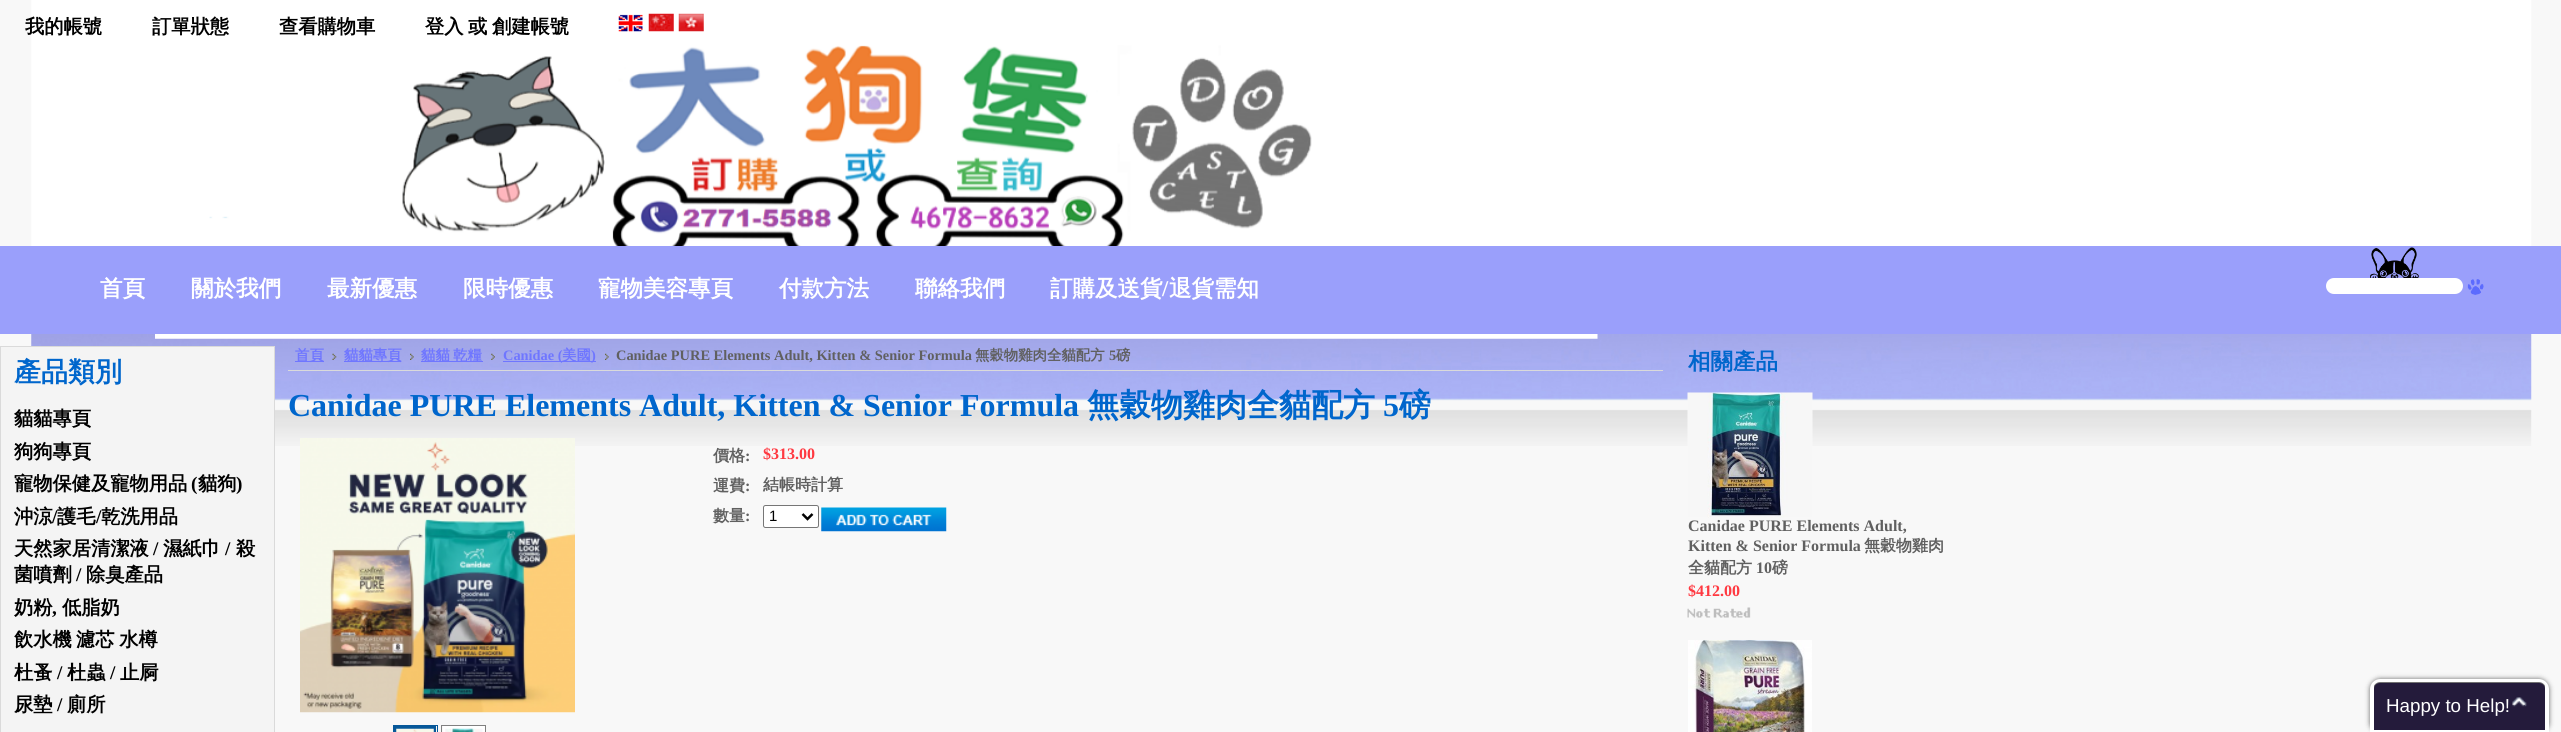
#include <cairo.h>
#include <math.h>
#include <stddef.h>

typedef struct { const char *family; double size; int italic, bold; unsigned color; } style_t;
static cairo_t *ctx;

static void ink(unsigned color) {
    cairo_set_source_rgb(ctx, (color >> 16) / 255.0, (color >> 8 & 255) / 255.0, (color & 255) / 255.0);
}

static void write(double x, double y, const char *s, const style_t *st) {
    cairo_select_font_face(ctx, st->family, st->italic ? CAIRO_FONT_SLANT_ITALIC : CAIRO_FONT_SLANT_NORMAL,
        st->bold ? CAIRO_FONT_WEIGHT_BOLD : CAIRO_FONT_WEIGHT_NORMAL);
    cairo_set_font_size(ctx, st->size);
    ink(st->color);
    cairo_move_to(ctx, x, y);
    cairo_show_text(ctx, s);
}

static void write_spaced(double x, double y, const char *s, double letter, double word) {
    cairo_move_to(ctx, x, y);
    while (*s) {
        char ch[5] = {0};
        int n = 0;
        do ch[n++] = *s++; while ((*s & 0xC0) == 0x80);
        cairo_show_text(ctx, ch);
        cairo_rel_move_to(ctx, letter + word * (*ch == ' '), 0);
    }
}

static void block(double x, double y, double w, double h, unsigned color) {
    ink(color);
    cairo_rectangle(ctx, x, y, w, h);
    cairo_fill(ctx);
}

static void round_path(double x, double y, double w, double h, double r) {
    cairo_new_sub_path(ctx);
    cairo_arc(ctx, x + w - r, y + h - r, r, 0, M_PI / 2);
    cairo_arc(ctx, x + r, y + h - r, r, M_PI / 2, M_PI);
    cairo_arc(ctx, x + r, y + r, r, M_PI, 1.5 * M_PI);
    cairo_arc(ctx, x + w - r, y + r, r, 1.5 * M_PI, 2 * M_PI);
    cairo_close_path(ctx);
}

static void blur_box(double x, double y, double w, double h, double r, double blur, double alpha) {
    cairo_push_group_with_content(ctx, CAIRO_CONTENT_ALPHA);
    cairo_set_operator(ctx, CAIRO_OPERATOR_SOURCE);
    for (int i = 15; i >= -15 && fmin(w, h) + blur * i / 3 > 0; i -= 2) {
        double e = blur * i / 6;
        cairo_set_source_rgba(ctx, 0, 0, 0, alpha * erfc((i - 1) / 8.5) / 2);
        round_path(x - e, y - e, w + 2 * e, h + 2 * e, fmax(0, fmin(r + e + blur * .6, fmin(w, h) / 2 + e)));
        cairo_fill(ctx);
    }
    cairo_pattern_t *soft = cairo_pop_group(ctx);
    cairo_mask(ctx, soft);
    cairo_pattern_destroy(soft);
}

static void paste(const char *path, double x, double y, double w, double h) {
    cairo_surface_t *image = cairo_image_surface_create_from_png(path);
    cairo_save(ctx);
    cairo_set_source_surface(ctx, image, x, y);
    cairo_rectangle(ctx, x, y, w, h);
    cairo_fill(ctx);
    cairo_restore(ctx);
    cairo_surface_destroy(image);
}

static const style_t s1 = {"WenQuanYi Zen Hei", 19.25, 0, 1, 0x000000};
static const style_t s2 = {"WenQuanYi Zen Hei", 22.5, 0, 1, 0xffffff};
static const style_t s3 = {"Liberation Serif", 22.5, 0, 1, 0xffffff};
static const style_t s4 = {"WenQuanYi Zen Hei", 27, 0, 1, 0x0066cc};
static const style_t s5 = {"Liberation Serif", 19.25, 0, 1, 0x000000};
static const style_t s6 = {"WenQuanYi Zen Hei", 14.4, 0, 1, 0x6f76ff};
static const style_t s7 = {"Liberation Serif", 14.4, 0, 1, 0x6f76ff};
static const style_t s8 = {"Liberation Serif", 14.4, 0, 1, 0x606060};
static const style_t s9 = {"WenQuanYi Zen Hei", 14.4, 0, 1, 0x606060};
static const style_t s10 = {"Liberation Serif", 32, 0, 1, 0x0066cc};
static const style_t s11 = {"WenQuanYi Zen Hei", 32, 0, 1, 0x0066cc};
static const style_t s12 = {"WenQuanYi Zen Hei", 16, 0, 1, 0x606060};
static const style_t s13 = {"Liberation Serif", 16, 0, 1, 0x606060};
static const style_t s14 = {"Liberation Serif", 16, 0, 1, 0xff3941};
static const style_t s15 = {"Liberation Sans", 15, 0, 0, 0x000000};
static const style_t s16 = {"WenQuanYi Zen Hei", 22.5, 0, 1, 0x0066cc};
static const style_t s17 = {"Liberation Sans", 18.75, 0, 0, 0xffffff};

int main(void) {
    cairo_surface_t *surface = cairo_image_surface_create(CAIRO_FORMAT_RGB24, 2561, 732);
    ctx = cairo_create(surface);
    cairo_font_options_t *options = cairo_font_options_create();
    cairo_font_options_set_hint_metrics(options, CAIRO_HINT_METRICS_OFF);
    cairo_font_options_set_hint_style(options, CAIRO_HINT_STYLE_NONE);
    cairo_set_font_options(ctx, options);
    cairo_set_miter_limit(ctx, 4);
    ink(0xf8f8f8);
    cairo_paint(ctx);
    paste("pic1.png", 31, 0, 2501, 446);
    write(25, 33, "我的帳號", &s1);
    write(152, 33, "訂單狀態", &s1);
    write(279, 33, "查看購物車", &s1);
    write(425, 33, "登入", &s1);
    write(468, 33, "或", &s1);
    write(492, 33, "創建帳號", &s1);
    paste("pic2.png", 618, 14, 25, 18);
    paste("pic3.png", 648, 13, 26, 19);
    paste("pic4.png", 678, 13, 26, 19);
    paste("pic5.png", 155, 45, 1443, 294);
    block(0, 246, 2561, 88, 0x9a9ffb);
    write(100, 296, "首頁", &s2);
    write(191, 296, "關於我們", &s2);
    write(327, 296, "最新優惠", &s2);
    write(463, 296, "限時優惠", &s2);
    write(598, 296, "寵物美容專頁", &s2);
    write(779, 296, "付款方法", &s2);
    write(915, 296, "聯絡我們", &s2);
    write(1050, 296, "訂購及送貨", &s2);
    write(1162, 296, "/", &s3);
    write(1169, 296, "退貨需知", &s2);
    paste("pic6.png", 2370, 247, 49, 31);
    round_path(2326, 278, 137, 16, 8);
    cairo_fill(ctx);
    paste("pic7.png", 2467, 279, 17, 16);
    ink(0xf4f4f4);
    cairo_rectangle(ctx, 0.5, 346.5, 274, 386);
    cairo_fill_preserve(ctx);
    ink(0xdadada);
    cairo_set_line_width(ctx, 1);
    cairo_stroke(ctx);
    write(14, 381, "產品類別", &s4);
    write(14, 425, "貓貓專頁", &s1);
    write(14, 458, "狗狗專頁", &s1);
    write(14, 490, "寵物保健及寵物用品", &s1);
    write(191, 490, "(", &s5);
    write(198, 490, "貓狗", &s1);
    write(236, 490, ")", &s5);
    write(14, 523, "沖涼", &s1);
    write(52, 523, "/", &s5);
    write(57, 523, "護毛", &s1);
    write(96, 523, "/", &s5);
    write(101, 523, "乾洗用品", &s1);
    write(14, 555, "天然家居清潔液", &s1);
    write(153, 555, "/", &s5);
    write(163, 555, "濕紙巾", &s1);
    write(225, 555, "/", &s5);
    write(236, 555, "殺", &s1);
    write(14, 581, "菌噴劑", &s1);
    write(76, 581, "/", &s5);
    write(86, 581, "除臭產品", &s1);
    write(14, 614, "奶粉", &s1);
    write(52, 614, ",", &s5);
    write(62, 614, "低脂奶", &s1);
    write(14, 646, "飲水機", &s1);
    write_spaced(76, 646, "濾芯 水樽", 0, -1);
    write(14, 679, "杜蚤", &s1);
    write(57, 679, "/", &s5);
    write(67, 679, "杜蟲", &s1);
    write(110, 679, "/", &s5);
    write(120, 679, "止屙", &s1);
    write(14, 711, "尿墊", &s1);
    write(57, 711, "/", &s5);
    write(67, 711, "廁所", &s1);
    block(288, 370, 1375, 1, 0xdadada);
    block(295, 361, 29, 1, 0x6f76ff);
    write(295, 360, "首頁", &s6);
    paste("pic8.png", 332, 353, 5, 7);
    block(344, 361, 57, 1, 0x6f76ff);
    write(344, 360, "貓貓專頁", &s6);
    paste("pic9.png", 410, 353, 4, 7);
    block(421, 361, 62, 1, 0x6f76ff);
    write_spaced(421, 360, "貓貓 乾糧", 0, -1);
    paste("pic10.png", 491, 353, 4, 7);
    block(503, 361, 93, 1, 0x6f76ff);
    write(503, 360, "Canidae (", &s7);
    write(562, 360, "美國", &s6);
    write(591, 360, ")", &s7);
    paste("pic11.png", 605, 353, 4, 7);
    write(616, 360, "Canidae PURE Elements Adult, Kitten & Senior Formula", &s8);
    write(975, 360, "無穀物雞肉全貓配方", &s9);
    write(1109, 360, "5", &s8);
    write(1116, 360, "磅", &s9);
    write(288, 416, "Canidae PURE Elements Adult, Kitten & Senior Formula", &s10);
    write(1087, 416, "無穀物雞肉全貓配方", &s11);
    write(1383, 416, "5", &s10);
    write(1399, 416, "磅", &s11);
    paste("pic12.png", 300, 438, 275, 275);
    cairo_rectangle(ctx, 393.5, 725.5, 44, 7);
    ink(0x075899);
    cairo_stroke(ctx);
    cairo_rectangle(ctx, 395.5, 727.5, 39, 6);
    cairo_set_line_width(ctx, 3);
    cairo_stroke(ctx);
    paste("pic13.png", 396, 728, 38, 4);
    cairo_rectangle(ctx, 441.5, 725.5, 44, 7);
    ink(0x808080);
    cairo_set_line_width(ctx, 1);
    cairo_stroke(ctx);
    cairo_rectangle(ctx, 444.5, 727.5, 39, 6);
    ink(0xffffff);
    cairo_set_line_width(ctx, 3);
    cairo_stroke(ctx);
    paste("pic14.png", 445, 728, 38, 4);
    write(713, 461, "價格", &s12);
    write(745, 461, ":", &s13);
    write(763, 459, "$313.00", &s14);
    write(713, 491, "運費", &s12);
    write(745, 491, ":", &s13);
    write(763, 490, "結帳時計算", &s12);
    write(713, 521, "數量", &s12);
    write(745, 521, ":", &s13);
    ink(0xffffff);
    round_path(763.5, 505.5, 55, 22, 2);
    cairo_fill_preserve(ctx);
    ink(0x767676);
    cairo_set_line_width(ctx, 1);
    cairo_stroke(ctx);
    cairo_new_path(ctx);
    cairo_move_to(ctx, 802.5, 514);
    cairo_line_to(ctx, 807.5, 519);
    cairo_line_to(ctx, 812.5, 514);
    ink(0x000000);
    cairo_set_line_width(ctx, 2.5);
    cairo_stroke(ctx);
    write(769, 521, "1", &s15);
    paste("pic15.png", 821, 507, 126, 25);
    write(1688, 369, "相關產品", &s16);
    paste("pic16.png", 1687, 392, 126, 126);
    write(1688, 531, "Canidae PURE Elements Adult,", &s13);
    write(1688, 551, "Kitten & Senior Formula", &s13);
    write(1864, 551, "無穀物雞肉", &s12);
    write(1688, 573, "全貓配方", &s12);
    write(1756, 573, "10", &s13);
    write(1772, 573, "磅", &s12);
    write(1688, 596, "$412.00", &s14);
    paste("pic17.png", 1687, 607, 64, 11);
    paste("pic18.png", 1688, 640, 124, 92);
    ink(0x666666);
    blur_box(2370, 679, 179, 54, 10, 2.5, 1);
    ink(0x241b3b);
    cairo_new_path(ctx);
    cairo_move_to(ctx, 2380, 683);
    cairo_line_to(ctx, 2539, 683);
    cairo_curve_to(ctx, 2542.5, 683, 2545, 685.5, 2545, 689);
    cairo_line_to(ctx, 2545, 730);
    cairo_line_to(ctx, 2374, 730);
    cairo_line_to(ctx, 2374, 689);
    cairo_curve_to(ctx, 2374, 685.5, 2376.5, 683, 2380, 683);
    cairo_close_path(ctx);
    cairo_fill(ctx);
    paste("pic19.png", 2512, 697, 15, 10);
    cairo_new_path(ctx);
    cairo_move_to(ctx, 2380, 680.5);
    cairo_line_to(ctx, 2539, 680.5);
    cairo_curve_to(ctx, 2543.5, 680.5, 2547.5, 684.5, 2547.5, 689);
    cairo_line_to(ctx, 2547.5, 731.5);
    cairo_line_to(ctx, 2371.5, 731.5);
    cairo_line_to(ctx, 2371.5, 689);
    cairo_curve_to(ctx, 2371.5, 684.5, 2375.5, 680.5, 2380, 680.5);
    cairo_close_path(ctx);
    ink(0xffffff);
    cairo_set_line_width(ctx, 3);
    cairo_stroke(ctx);
    block(2545, 684, 1, 48, 0xffffff);
    block(2373, 684, 1, 48, 0xffffff);
    write(2386, 712, "Happy to Help!", &s17);
    cairo_surface_write_to_png(surface, "screenshot.png");
    cairo_font_options_destroy(options);
    cairo_destroy(ctx);
    cairo_surface_destroy(surface);
    return 0;
}
